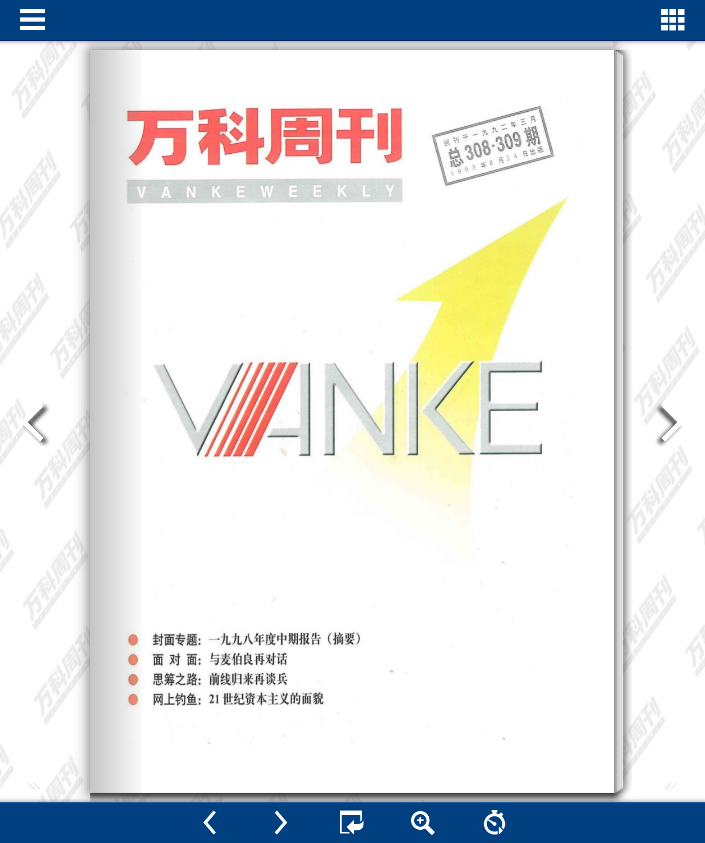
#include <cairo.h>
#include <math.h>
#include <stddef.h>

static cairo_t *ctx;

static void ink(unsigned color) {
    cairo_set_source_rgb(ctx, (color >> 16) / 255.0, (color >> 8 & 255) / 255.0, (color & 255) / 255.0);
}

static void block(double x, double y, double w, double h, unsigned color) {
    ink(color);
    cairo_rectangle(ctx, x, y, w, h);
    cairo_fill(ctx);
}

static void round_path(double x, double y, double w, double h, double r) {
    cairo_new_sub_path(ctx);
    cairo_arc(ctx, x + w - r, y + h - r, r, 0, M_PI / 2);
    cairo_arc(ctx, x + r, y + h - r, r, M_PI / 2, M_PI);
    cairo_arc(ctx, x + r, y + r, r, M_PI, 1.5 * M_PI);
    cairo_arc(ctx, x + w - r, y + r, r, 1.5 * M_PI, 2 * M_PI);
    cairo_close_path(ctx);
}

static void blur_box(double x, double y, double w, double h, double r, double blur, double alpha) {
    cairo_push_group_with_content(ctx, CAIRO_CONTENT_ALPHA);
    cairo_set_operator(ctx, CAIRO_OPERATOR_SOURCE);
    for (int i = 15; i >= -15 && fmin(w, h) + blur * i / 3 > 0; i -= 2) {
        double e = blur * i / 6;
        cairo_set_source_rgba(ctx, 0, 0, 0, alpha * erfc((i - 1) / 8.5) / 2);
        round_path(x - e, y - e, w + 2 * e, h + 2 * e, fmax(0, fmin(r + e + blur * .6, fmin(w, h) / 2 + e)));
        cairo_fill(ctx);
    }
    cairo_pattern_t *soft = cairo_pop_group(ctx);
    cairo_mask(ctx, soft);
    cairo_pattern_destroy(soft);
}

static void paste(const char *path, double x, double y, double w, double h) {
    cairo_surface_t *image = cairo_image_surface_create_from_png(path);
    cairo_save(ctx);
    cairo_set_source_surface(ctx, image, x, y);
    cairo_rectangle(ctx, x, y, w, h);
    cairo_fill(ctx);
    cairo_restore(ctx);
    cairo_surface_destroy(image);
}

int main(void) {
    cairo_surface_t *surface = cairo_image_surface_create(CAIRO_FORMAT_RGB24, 705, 843);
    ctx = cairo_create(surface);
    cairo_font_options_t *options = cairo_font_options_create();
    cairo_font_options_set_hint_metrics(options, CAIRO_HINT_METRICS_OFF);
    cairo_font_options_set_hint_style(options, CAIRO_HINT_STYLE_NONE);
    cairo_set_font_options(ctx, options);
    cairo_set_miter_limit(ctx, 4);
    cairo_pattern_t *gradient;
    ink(0xffffff);
    cairo_paint(ctx);
    paste("pic6.png", 0, 41, 705, 761);
    ink(0x280000);
    blur_box(0, 0, 705, 41, 0, 2.5, 0.5);
    ink(0x282828);
    blur_box(90, 50, 525, 743, 0, 7.5, 0.7);
    cairo_save(ctx);
    cairo_rectangle(ctx, 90, 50, 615, 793);
    cairo_clip(ctx);
    blur_box(90, 50, 525, 743, 0, 5, 0.5);
    blur_box(90, 50, 525, 743, 0, 5, 0.5);
    blur_box(90, 50, 525, 743, 0, 5, 0.5);
    blur_box(90, 50, 525, 743, 0, 5, 0.5);
    cairo_restore(ctx);
    paste("pic3.png", 90, 792, 525, 1);
    cairo_save(ctx);
    cairo_rectangle(ctx, 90, 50, 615, 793);
    cairo_clip(ctx);
    blur_box(90, 50, 525, 743, 0, 5, 0.5);
    blur_box(90, 50, 525, 743, 0, 5, 0.5);
    cairo_restore(ctx);
    block(0, 0, 705, 40, 0x004080);
    block(0, 40, 705, 1, 0x002262);
    paste("pic1.png", 20, 9, 25, 21);
    paste("pic2.png", 661, 9, 24, 22);
    paste("pic4.png", 90, 50, 525, 743);
    gradient = cairo_pattern_create_linear(90, 50, 145, 50);
    cairo_pattern_add_color_stop_rgba(gradient, 0, 0.365, 0.365, 0.365, 0.36);
    cairo_pattern_add_color_stop_rgba(gradient, 1, 0.365, 0.365, 0.365, 0);
    cairo_set_source(ctx, gradient);
    cairo_pattern_destroy(gradient);
    cairo_rectangle(ctx, 90, 50, 52, 743);
    cairo_fill(ctx);
    paste("pic5.png", 614, 50, 18, 743);
    paste("pic7.png", 22, 403, 28, 44);
    paste("pic8.png", 655, 403, 28, 44);
    paste("pic9.png", 28, 783, 12, 6);
    paste("pic10.png", 665, 783, 12, 6);
    ink(0x280000);
    blur_box(0, 802, 705, 41, 0, 2.5, 0.5);
    block(0, 803, 705, 40, 0x004080);
    block(0, 802, 705, 1, 0x1e5e9e);
    paste("pic11.png", 203, 810, 13, 25);
    paste("pic12.png", 274, 810, 14, 25);
    paste("pic13.png", 340, 810, 24, 25);
    paste("pic14.png", 411, 811, 24, 24);
    paste("pic15.png", 483, 810, 23, 25);
    cairo_surface_write_to_png(surface, "screenshot.png");
    cairo_font_options_destroy(options);
    cairo_destroy(ctx);
    cairo_surface_destroy(surface);
    return 0;
}
